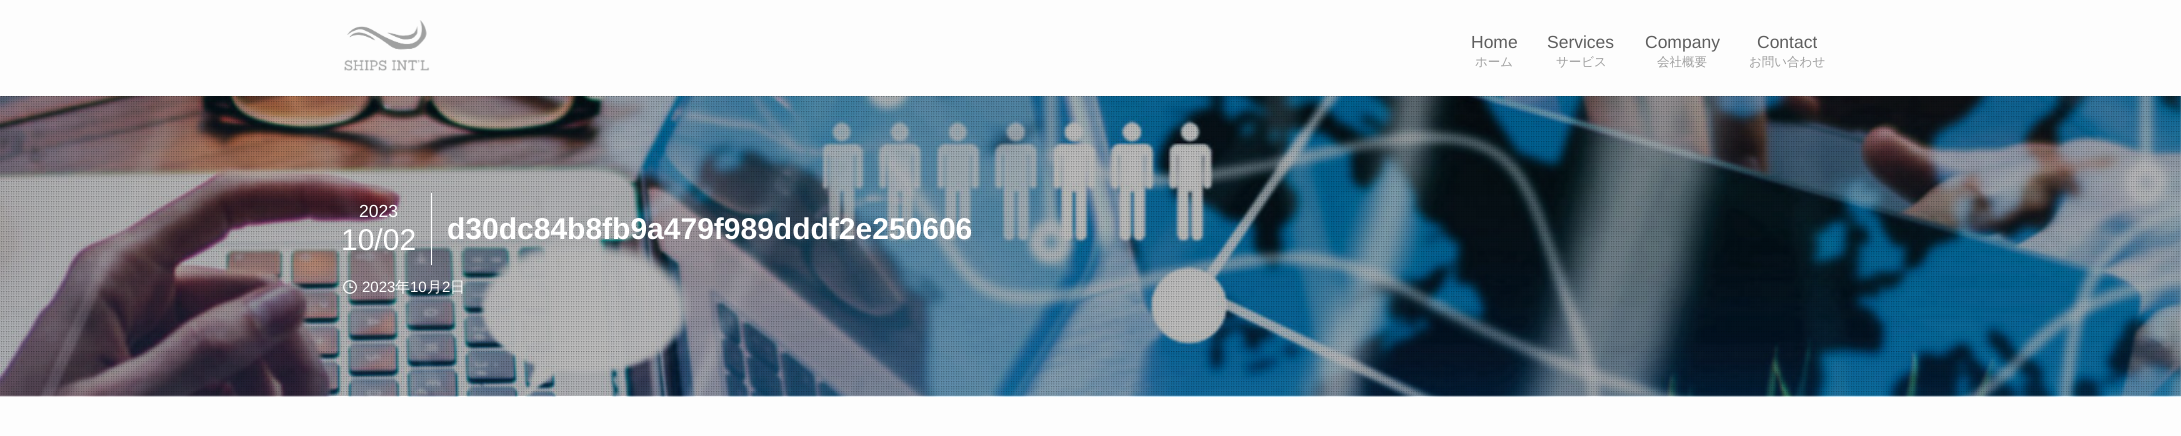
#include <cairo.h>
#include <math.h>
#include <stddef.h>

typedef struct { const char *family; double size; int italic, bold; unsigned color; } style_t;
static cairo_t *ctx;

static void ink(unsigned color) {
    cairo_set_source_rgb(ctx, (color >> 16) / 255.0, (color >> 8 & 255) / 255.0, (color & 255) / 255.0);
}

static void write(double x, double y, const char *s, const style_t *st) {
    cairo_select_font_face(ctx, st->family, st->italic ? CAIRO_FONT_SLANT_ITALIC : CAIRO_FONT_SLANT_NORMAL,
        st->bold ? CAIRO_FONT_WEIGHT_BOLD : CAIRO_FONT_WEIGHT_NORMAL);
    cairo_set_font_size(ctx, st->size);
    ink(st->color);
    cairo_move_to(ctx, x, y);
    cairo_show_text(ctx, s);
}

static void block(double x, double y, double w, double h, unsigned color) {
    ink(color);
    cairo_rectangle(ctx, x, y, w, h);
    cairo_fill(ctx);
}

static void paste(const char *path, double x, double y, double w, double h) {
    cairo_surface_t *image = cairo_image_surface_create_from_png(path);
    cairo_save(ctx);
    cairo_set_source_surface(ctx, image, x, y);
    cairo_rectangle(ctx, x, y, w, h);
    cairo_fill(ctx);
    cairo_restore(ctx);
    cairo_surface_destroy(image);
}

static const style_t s1 = {"Liberation Sans", 17.5, 0, 0, 0x5e5e5e};
static const style_t s2 = {"WenQuanYi Zen Hei Medium", 12.5, 0, 0, 0x9e9e9e};
static const style_t s3 = {"Liberation Sans", 17.5, 0, 0, 0xffffff};
static const style_t s4 = {"Liberation Sans", 30, 0, 0, 0xffffff};
static const style_t s5 = {"Liberation Sans", 30, 0, 1, 0xffffff};
static const style_t s6 = {"Liberation Sans", 15, 0, 0, 0xffffff};
static const style_t s7 = {"WenQuanYi Zen Hei Medium", 15, 0, 0, 0xffffff};

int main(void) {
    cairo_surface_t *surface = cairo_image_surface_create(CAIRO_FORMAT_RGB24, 2181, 436);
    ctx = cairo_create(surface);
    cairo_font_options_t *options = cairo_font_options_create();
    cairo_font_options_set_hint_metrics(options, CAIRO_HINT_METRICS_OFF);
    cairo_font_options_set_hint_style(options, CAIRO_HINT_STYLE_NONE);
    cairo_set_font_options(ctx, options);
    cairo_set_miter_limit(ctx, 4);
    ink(0xfdfdfd);
    cairo_paint(ctx);
    block(0, 96, 2181, 300, 0xc0c0c0);
    paste("pic1.png", 344, 20, 86, 51);
    write(1471, 48, "Home", &s1);
    write(1475, 66, "ホーム", &s2);
    write(1547, 48, "Services", &s1);
    write(1556, 66, "サービス", &s2);
    write(1645, 48, "Company", &s1);
    write(1657, 66, "会社概要", &s2);
    write(1757, 48, "Contact", &s1);
    write(1749, 66, "お問い合わせ", &s2);
    paste("pic2.png", 0, 96, 2181, 301);
    paste("pic3.png", 0, 96, 2181, 300);
    block(431, 193, 1, 72, 0xffffff);
    write(359, 217, "2023", &s3);
    write(341, 250, "10/02", &s4);
    write(447, 239, "d30dc84b8fb9a479f989dddf2e250606", &s5);
    paste("pic4.png", 343, 280, 14, 14);
    write(362, 292, "2023", &s6);
    write(395, 292, "年", &s7);
    write(410, 292, "10", &s6);
    write(427, 292, "月", &s7);
    write(442, 292, "2", &s6);
    write(450, 292, "日", &s7);
    cairo_surface_write_to_png(surface, "screenshot.png");
    cairo_font_options_destroy(options);
    cairo_destroy(ctx);
    cairo_surface_destroy(surface);
    return 0;
}
